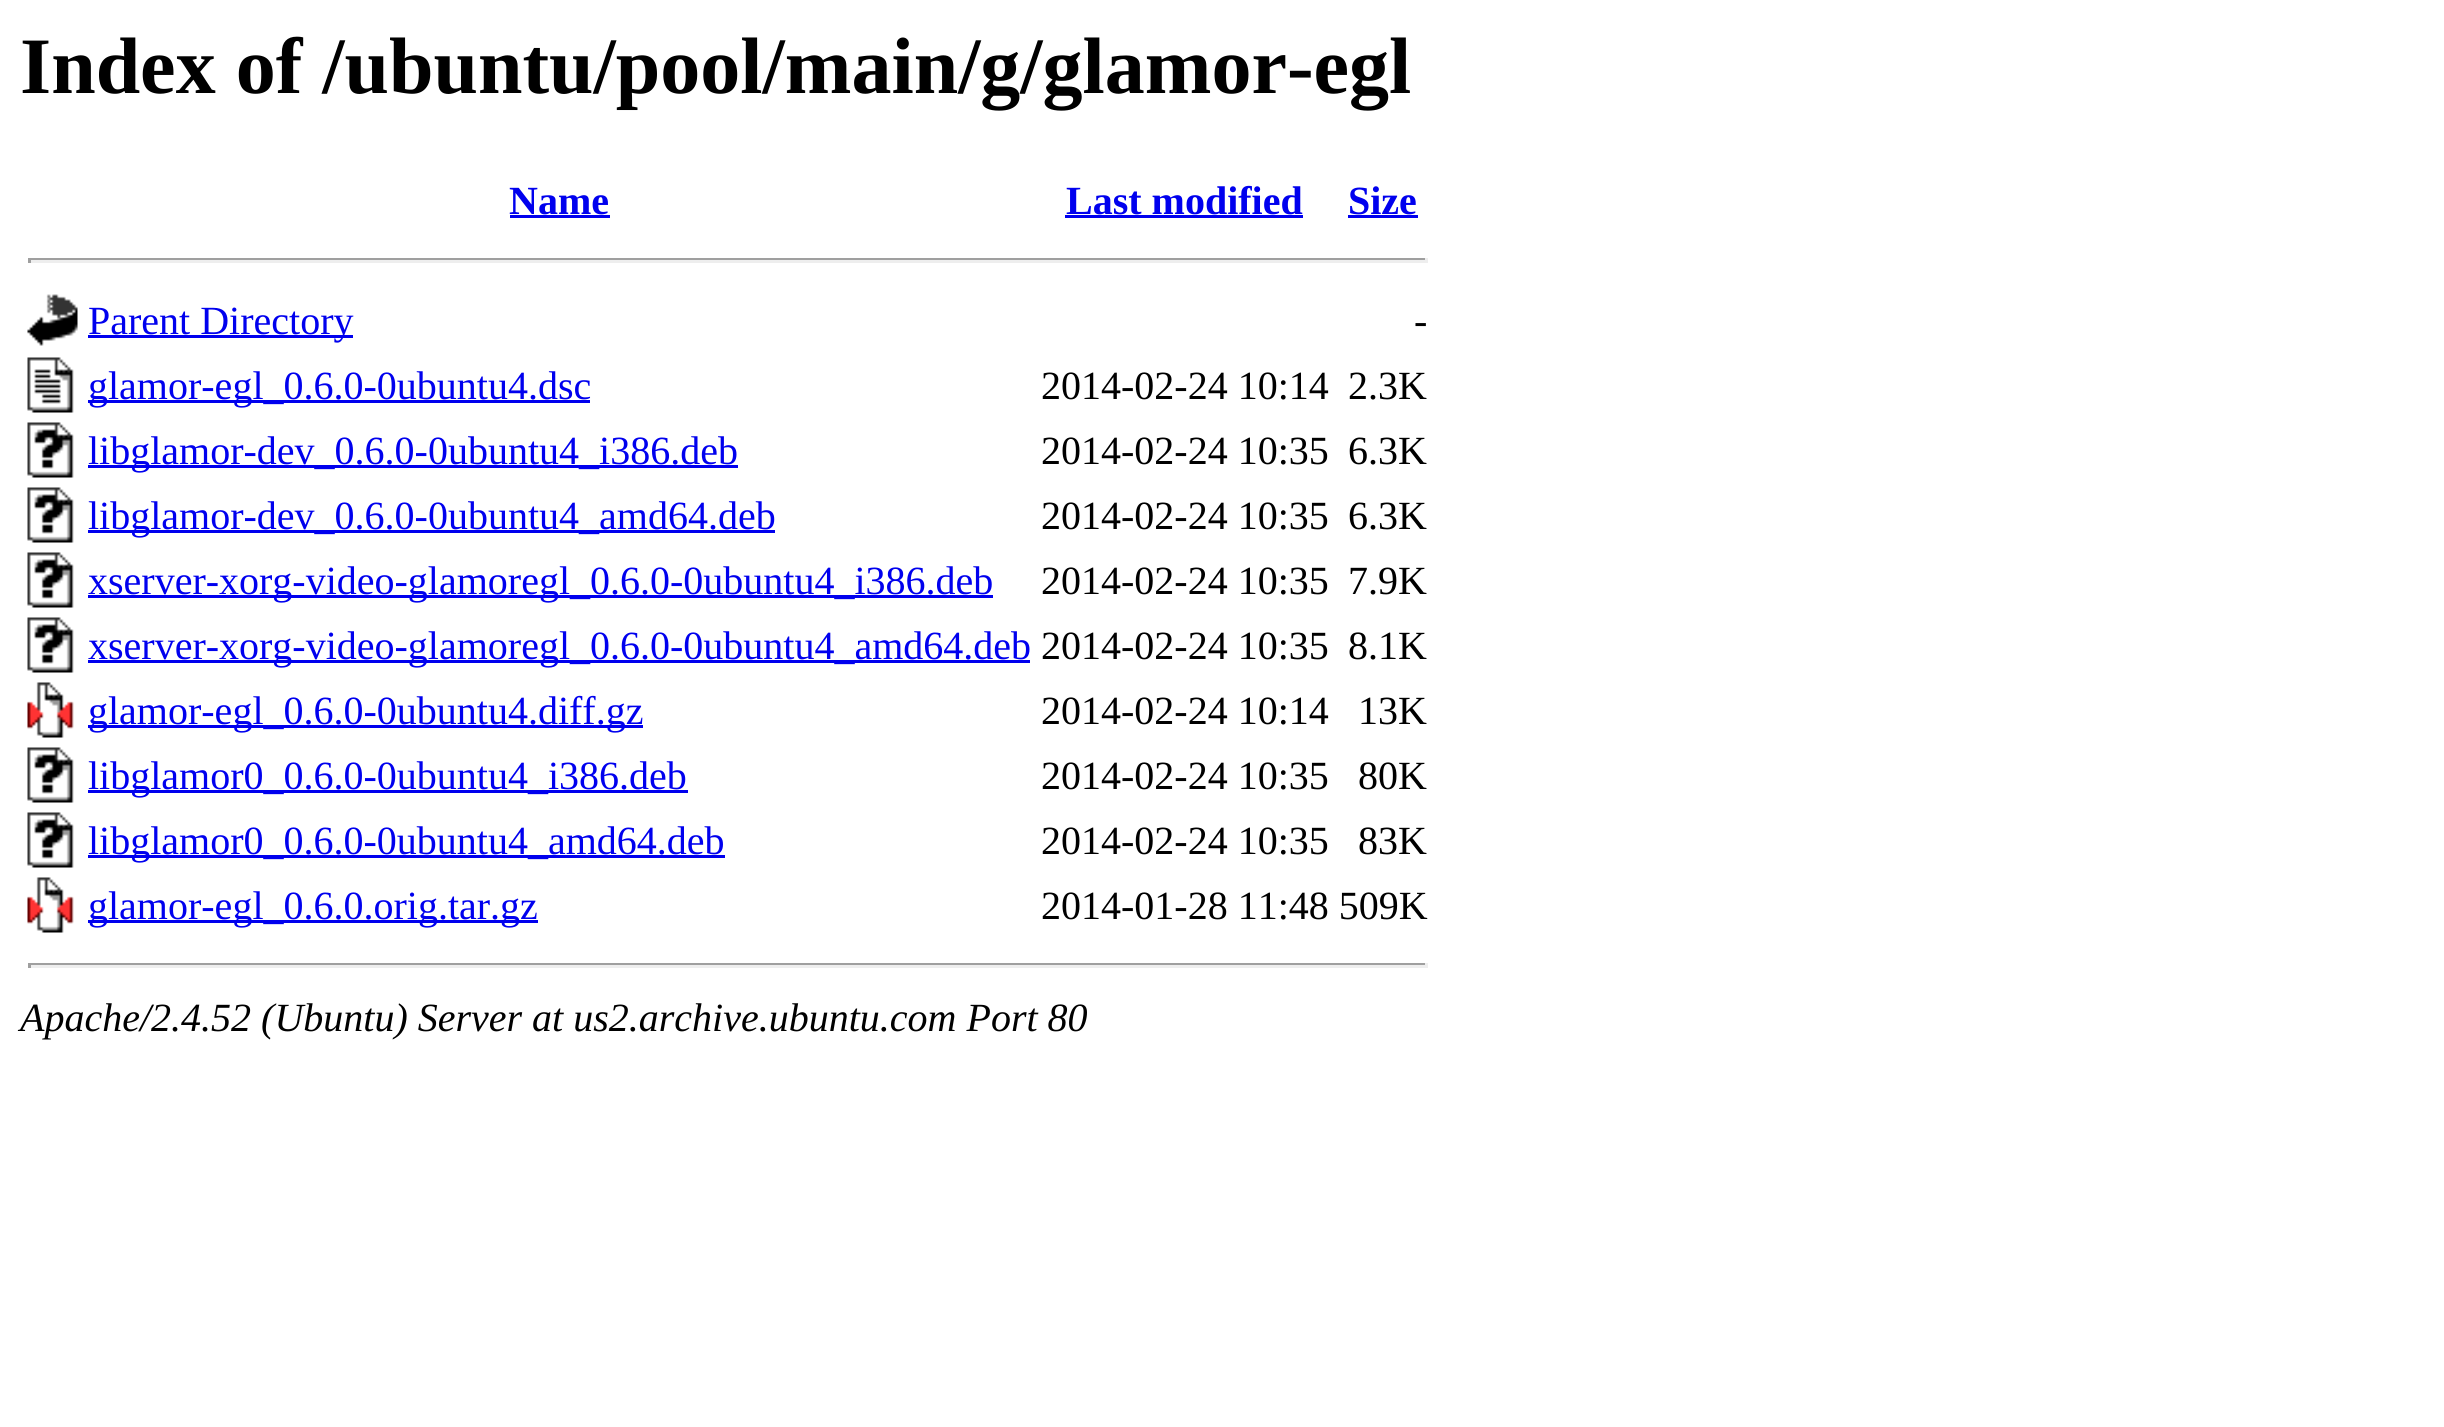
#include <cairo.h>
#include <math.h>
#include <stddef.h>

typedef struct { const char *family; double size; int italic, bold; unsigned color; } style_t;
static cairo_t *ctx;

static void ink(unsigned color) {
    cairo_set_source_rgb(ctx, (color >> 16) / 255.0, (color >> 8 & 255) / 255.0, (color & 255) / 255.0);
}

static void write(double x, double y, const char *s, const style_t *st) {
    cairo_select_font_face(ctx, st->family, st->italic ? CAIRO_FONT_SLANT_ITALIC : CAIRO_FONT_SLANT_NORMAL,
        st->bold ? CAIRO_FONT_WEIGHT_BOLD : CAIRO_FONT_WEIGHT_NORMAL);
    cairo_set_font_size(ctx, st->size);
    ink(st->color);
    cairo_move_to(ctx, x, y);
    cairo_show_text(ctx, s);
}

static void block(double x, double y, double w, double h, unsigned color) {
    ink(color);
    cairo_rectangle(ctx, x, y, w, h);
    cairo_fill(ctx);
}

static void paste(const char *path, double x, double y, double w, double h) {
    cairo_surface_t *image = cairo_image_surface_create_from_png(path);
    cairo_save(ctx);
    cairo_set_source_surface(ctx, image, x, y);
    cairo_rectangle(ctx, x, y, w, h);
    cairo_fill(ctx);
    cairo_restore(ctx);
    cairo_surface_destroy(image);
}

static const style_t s1 = {"Liberation Serif", 80, 0, 1, 0x000000};
static const style_t s2 = {"Liberation Serif", 40, 0, 1, 0x0000ee};
static const style_t s3 = {"Liberation Serif", 40, 0, 0, 0x0000ee};
static const style_t s4 = {"Liberation Serif", 40, 0, 0, 0x000000};
static const style_t s5 = {"Liberation Serif", 40, 1, 0, 0x000000};

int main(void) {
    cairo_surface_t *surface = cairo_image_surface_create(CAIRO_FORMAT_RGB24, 2444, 1427);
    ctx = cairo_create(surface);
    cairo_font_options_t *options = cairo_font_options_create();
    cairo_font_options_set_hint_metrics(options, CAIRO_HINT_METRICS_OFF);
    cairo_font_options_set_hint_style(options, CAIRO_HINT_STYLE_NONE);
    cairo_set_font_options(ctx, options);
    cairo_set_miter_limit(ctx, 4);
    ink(0xffffff);
    cairo_paint(ctx);
    write(20, 93, "Index of /ubuntu/pool/main/g/glamor-egl", &s1);
    write(509, 214, "Name", &s2);
    block(510, 215, 100, 3, 0x0000ee);
    write(1066, 214, "Last modified", &s2);
    block(1065, 215, 238, 3, 0x0000ee);
    write(1348, 214, "Size", &s2);
    block(1348, 215, 70, 3, 0x0000ee);
    block(28, 258, 1400, 2, 0x9f9f9f);
    block(1425, 258, 3, 5, 0xeeeeee);
    block(28, 260, 1400, 3, 0xeeeeee);
    block(28, 258, 3, 5, 0x9f9f9f);
    paste("pic1.png", 27, 294, 51, 52);
    block(88, 335, 265, 3, 0x0000ee);
    write(88, 334, "Parent Directory", &s3);
    write(1414, 334, "-", &s4);
    paste("pic2.png", 27, 357, 47, 56);
    block(88, 400, 502, 3, 0x0000ee);
    write(88, 399, "glamor-egl_0.6.0-0ubuntu4.dsc", &s3);
    write(1041, 399, "2014-02-24 10:14", &s4);
    write(1348, 399, "2.3K", &s4);
    paste("pic3.png", 27, 422, 47, 56);
    block(88, 465, 650, 3, 0x0000ee);
    write(88, 464, "libglamor-dev_0.6.0-0ubuntu4_i386.deb", &s3);
    write(1041, 464, "2014-02-24 10:35", &s4);
    write(1348, 464, "6.3K", &s4);
    paste("pic3.png", 27, 487, 47, 56);
    block(88, 530, 687, 3, 0x0000ee);
    write(88, 529, "libglamor-dev_0.6.0-0ubuntu4_amd64.deb", &s3);
    write(1041, 529, "2014-02-24 10:35", &s4);
    write(1348, 529, "6.3K", &s4);
    paste("pic4.png", 27, 552, 47, 56);
    block(88, 595, 905, 3, 0x0000ee);
    write(88, 594, "xserver-xorg-video-glamoregl_0.6.0-0ubuntu4_i386.deb", &s3);
    write(1041, 594, "2014-02-24 10:35", &s4);
    write(1348, 594, "7.9K", &s4);
    paste("pic3.png", 27, 617, 47, 56);
    block(88, 660, 942, 3, 0x0000ee);
    write(88, 659, "xserver-xorg-video-glamoregl_0.6.0-0ubuntu4_amd64.deb", &s3);
    write(1041, 659, "2014-02-24 10:35", &s4);
    write(1348, 659, "8.1K", &s4);
    paste("pic5.png", 27, 682, 47, 56);
    block(88, 725, 555, 3, 0x0000ee);
    write(88, 724, "glamor-egl_0.6.0-0ubuntu4.diff.gz", &s3);
    write(1041, 724, "2014-02-24 10:14", &s4);
    write(1358, 724, "13K", &s4);
    paste("pic3.png", 27, 747, 47, 56);
    block(88, 790, 600, 3, 0x0000ee);
    write(88, 789, "libglamor0_0.6.0-0ubuntu4_i386.deb", &s3);
    write(1041, 789, "2014-02-24 10:35", &s4);
    write(1358, 789, "80K", &s4);
    paste("pic3.png", 27, 812, 47, 56);
    block(88, 855, 637, 3, 0x0000ee);
    write(88, 854, "libglamor0_0.6.0-0ubuntu4_amd64.deb", &s3);
    write(1041, 854, "2014-02-24 10:35", &s4);
    write(1358, 854, "83K", &s4);
    paste("pic5.png", 27, 877, 47, 56);
    block(88, 920, 450, 3, 0x0000ee);
    write(88, 919, "glamor-egl_0.6.0.orig.tar.gz", &s3);
    write(1041, 919, "2014-01-28 11:48 509K", &s4);
    block(28, 963, 1400, 2, 0x9f9f9f);
    block(1425, 963, 3, 5, 0xeeeeee);
    block(28, 965, 1400, 3, 0xeeeeee);
    block(28, 963, 3, 5, 0x9f9f9f);
    write(20, 1031, "Apache/2.4.52 (Ubuntu) Server at us2.archive.ubuntu.com Port 80", &s5);
    cairo_surface_write_to_png(surface, "screenshot.png");
    cairo_font_options_destroy(options);
    cairo_destroy(ctx);
    cairo_surface_destroy(surface);
    return 0;
}
